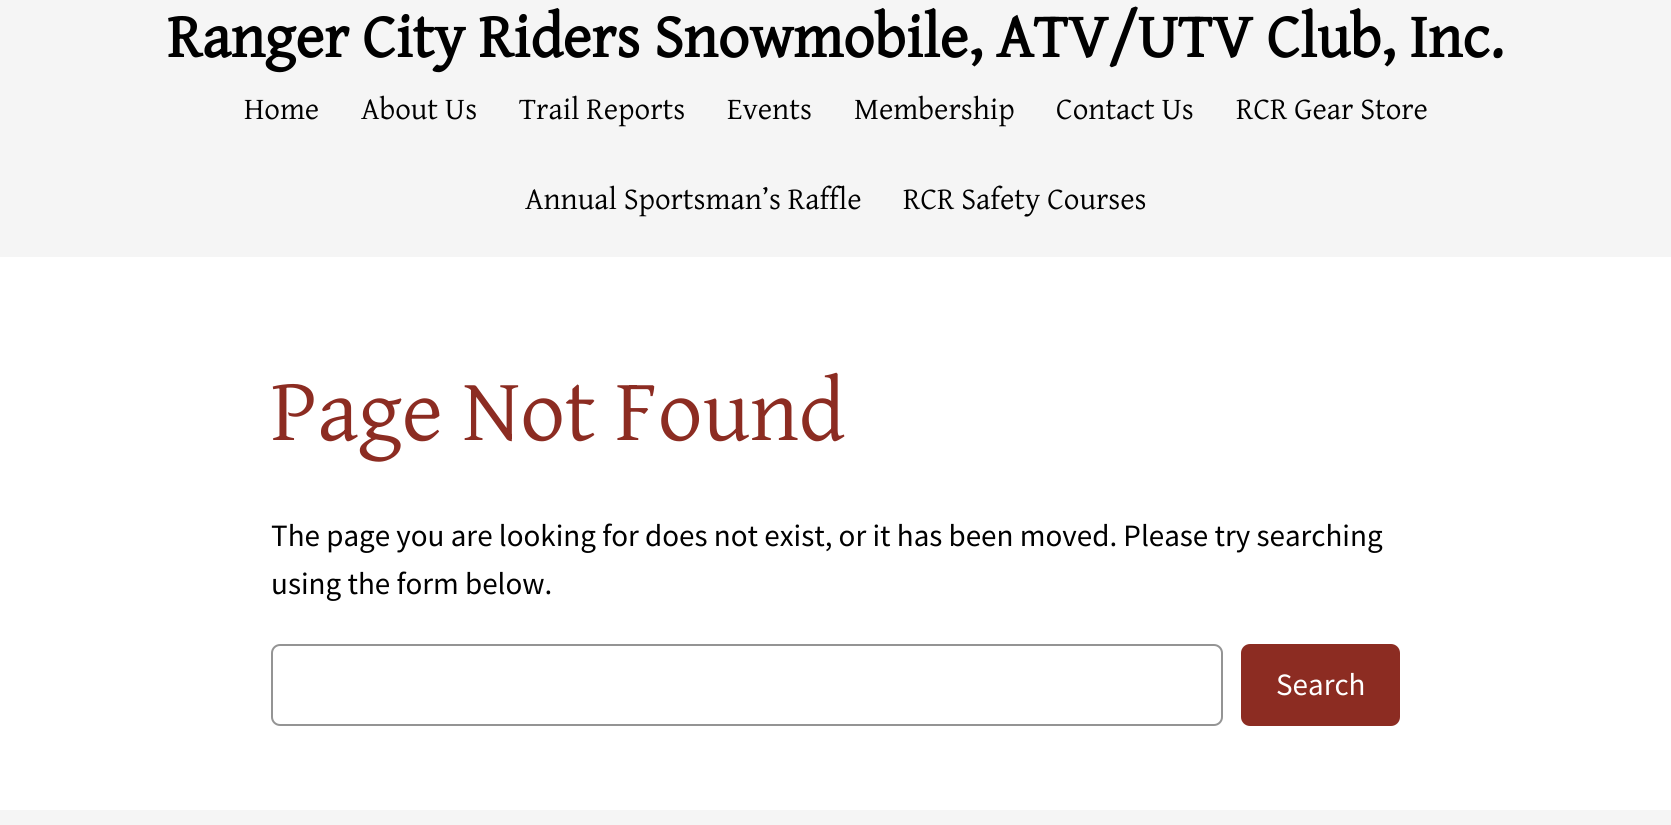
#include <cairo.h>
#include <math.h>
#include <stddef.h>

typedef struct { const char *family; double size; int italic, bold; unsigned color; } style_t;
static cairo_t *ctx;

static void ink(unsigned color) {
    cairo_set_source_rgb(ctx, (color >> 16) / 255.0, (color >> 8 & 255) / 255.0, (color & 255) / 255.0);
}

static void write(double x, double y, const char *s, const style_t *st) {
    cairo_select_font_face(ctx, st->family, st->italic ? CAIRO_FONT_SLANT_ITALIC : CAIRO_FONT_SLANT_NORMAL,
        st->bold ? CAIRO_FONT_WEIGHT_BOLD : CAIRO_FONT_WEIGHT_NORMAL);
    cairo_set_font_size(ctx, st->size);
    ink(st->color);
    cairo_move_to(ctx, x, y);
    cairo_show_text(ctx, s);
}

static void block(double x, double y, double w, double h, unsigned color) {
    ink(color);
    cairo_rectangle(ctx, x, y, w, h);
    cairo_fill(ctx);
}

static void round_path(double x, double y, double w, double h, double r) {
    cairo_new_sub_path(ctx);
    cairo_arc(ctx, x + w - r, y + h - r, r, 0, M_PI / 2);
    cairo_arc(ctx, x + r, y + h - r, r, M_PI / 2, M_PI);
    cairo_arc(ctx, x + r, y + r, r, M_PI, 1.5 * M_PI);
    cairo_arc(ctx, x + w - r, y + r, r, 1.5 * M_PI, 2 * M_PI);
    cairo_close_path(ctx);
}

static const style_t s1 = {"Gentium Plus", 62.25, 0, 1, 0x000000};
static const style_t s2 = {"Gentium Plus", 31.05, 0, 0, 0x000000};
static const style_t s3 = {"Gentium Plus", 89, 0, 0, 0x8c2c22};
static const style_t s4 = {"Source Sans Pro", 31.05, 0, 0, 0x000000};
static const style_t s5 = {"Source Sans Pro", 31.05, 0, 0, 0xffffff};

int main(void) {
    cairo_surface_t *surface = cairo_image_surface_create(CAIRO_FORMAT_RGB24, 1671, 825);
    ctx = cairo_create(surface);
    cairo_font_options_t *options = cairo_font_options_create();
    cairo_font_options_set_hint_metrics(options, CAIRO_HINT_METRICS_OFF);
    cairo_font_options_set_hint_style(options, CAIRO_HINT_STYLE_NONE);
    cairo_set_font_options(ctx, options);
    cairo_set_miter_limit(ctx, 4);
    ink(0xffffff);
    cairo_paint(ctx);
    block(0, 0, 1671, 257, 0xf5f5f5);
    write(167, 57, "Ranger City Riders Snowmobile, ATV/UTV Club, Inc.", &s1);
    write(244, 119, "Home", &s2);
    write(361, 119, "About Us", &s2);
    write(519, 119, "Trail Reports", &s2);
    write(727, 119, "Events", &s2);
    write(854, 119, "Membership", &s2);
    write(1056, 119, "Contact Us", &s2);
    write(1236, 119, "RCR Gear Store", &s2);
    write(525, 209, "Annual Sportsman’s Raffle", &s2);
    write(903, 209, "RCR Safety Courses", &s2);
    write(271, 440, "Page Not Found", &s3);
    write(271, 546, "The page you are looking for does not exist, or it has been moved. Please try searching", &s4);
    write(271, 594, "using the form below.", &s4);
    round_path(272, 645, 950, 80, 8);
    ink(0x949494);
    cairo_stroke(ctx);
    ink(0x8c2c22);
    round_path(1241, 644, 159, 82, 9);
    cairo_fill(ctx);
    write(1276, 695, "Search", &s5);
    block(0, 810, 1671, 15, 0xf5f5f5);
    cairo_surface_write_to_png(surface, "screenshot.png");
    cairo_font_options_destroy(options);
    cairo_destroy(ctx);
    cairo_surface_destroy(surface);
    return 0;
}
